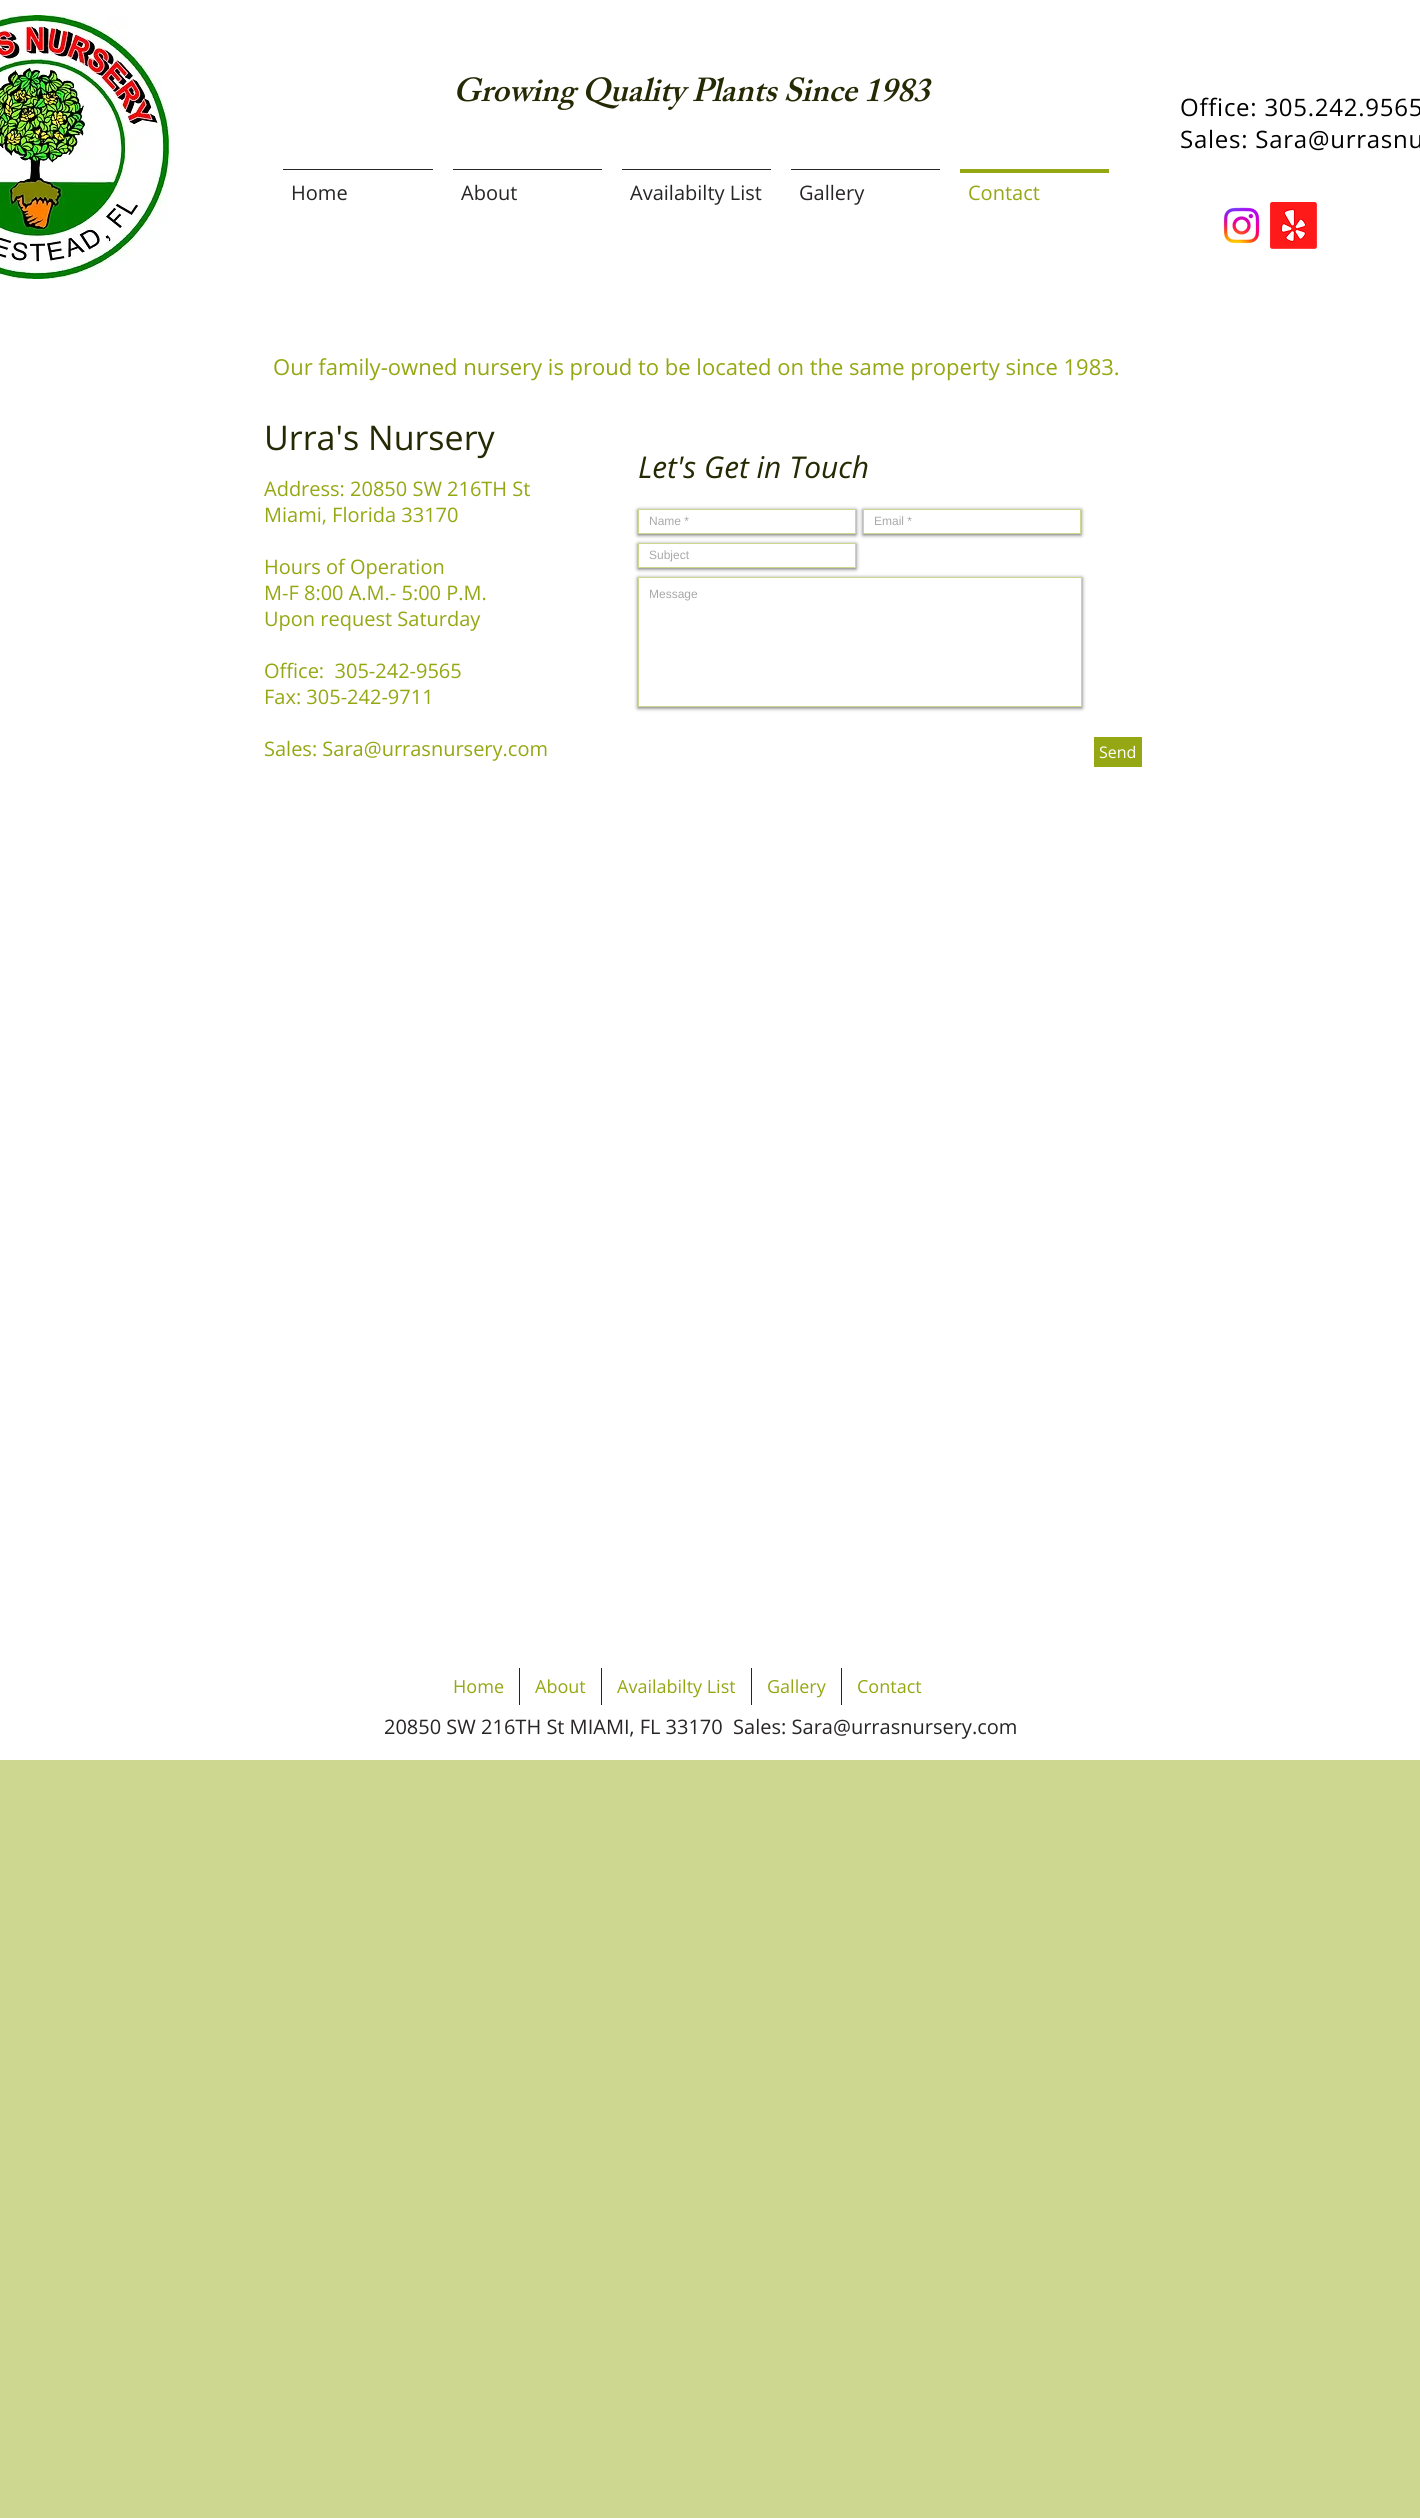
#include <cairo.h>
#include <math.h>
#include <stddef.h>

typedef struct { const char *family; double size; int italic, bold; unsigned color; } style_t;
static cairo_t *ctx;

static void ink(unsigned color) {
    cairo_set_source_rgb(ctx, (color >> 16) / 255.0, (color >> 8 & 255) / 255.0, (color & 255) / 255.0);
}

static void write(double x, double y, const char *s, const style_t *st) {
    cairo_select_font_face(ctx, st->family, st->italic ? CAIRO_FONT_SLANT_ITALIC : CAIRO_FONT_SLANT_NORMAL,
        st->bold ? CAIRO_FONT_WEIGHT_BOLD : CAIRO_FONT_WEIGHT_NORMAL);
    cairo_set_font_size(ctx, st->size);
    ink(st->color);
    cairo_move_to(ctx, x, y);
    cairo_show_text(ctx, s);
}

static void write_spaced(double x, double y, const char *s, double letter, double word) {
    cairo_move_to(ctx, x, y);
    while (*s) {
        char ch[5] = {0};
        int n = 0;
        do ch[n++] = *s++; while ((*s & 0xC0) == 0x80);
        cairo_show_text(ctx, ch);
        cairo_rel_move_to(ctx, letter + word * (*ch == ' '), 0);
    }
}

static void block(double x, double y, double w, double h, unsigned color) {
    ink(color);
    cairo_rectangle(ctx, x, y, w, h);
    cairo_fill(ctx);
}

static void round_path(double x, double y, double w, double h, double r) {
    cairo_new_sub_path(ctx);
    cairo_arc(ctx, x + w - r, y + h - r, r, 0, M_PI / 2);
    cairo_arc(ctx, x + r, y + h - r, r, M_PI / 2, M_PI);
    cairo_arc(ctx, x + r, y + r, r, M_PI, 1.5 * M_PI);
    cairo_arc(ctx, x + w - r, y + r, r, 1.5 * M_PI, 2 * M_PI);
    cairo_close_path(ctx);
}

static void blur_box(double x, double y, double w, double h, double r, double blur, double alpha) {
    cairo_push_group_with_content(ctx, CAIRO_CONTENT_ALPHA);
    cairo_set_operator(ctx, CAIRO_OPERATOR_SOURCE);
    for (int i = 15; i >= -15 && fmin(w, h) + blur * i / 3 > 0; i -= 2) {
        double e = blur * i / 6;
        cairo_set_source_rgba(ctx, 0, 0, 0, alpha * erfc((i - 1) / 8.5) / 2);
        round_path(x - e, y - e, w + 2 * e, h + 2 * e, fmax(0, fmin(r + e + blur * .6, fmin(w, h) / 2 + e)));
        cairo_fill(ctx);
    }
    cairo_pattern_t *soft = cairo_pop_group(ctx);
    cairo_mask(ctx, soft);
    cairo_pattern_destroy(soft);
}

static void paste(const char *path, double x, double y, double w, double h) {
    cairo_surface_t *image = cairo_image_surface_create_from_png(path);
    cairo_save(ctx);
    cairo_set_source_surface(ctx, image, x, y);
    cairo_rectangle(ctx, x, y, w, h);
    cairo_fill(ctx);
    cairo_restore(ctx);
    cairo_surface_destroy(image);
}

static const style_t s1 = {"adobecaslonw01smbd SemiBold", 33, 1, 0, 0x252a04};
static const style_t s2 = {"Open Sans", 20, 0, 0, 0x282527};
static const style_t s3 = {"Open Sans", 20, 0, 0, 0x95a712};
static const style_t s4 = {"Open Sans", 22, 0, 0, 0x95a712};
static const style_t s5 = {"Open Sans", 34, 0, 0, 0x252a04};
static const style_t s6 = {"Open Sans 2", 20, 0, 0, 0x95a712};
static const style_t s7 = {"Open Sans", 30, 1, 0, 0x252a04};
static const style_t s8 = {"Liberation Sans", 12, 0, 0, 0xa9a9a9};
static const style_t s9 = {"Open Sans", 16, 0, 0, 0xffffff};
static const style_t s10 = {"Open Sans", 18, 0, 0, 0x95a712};

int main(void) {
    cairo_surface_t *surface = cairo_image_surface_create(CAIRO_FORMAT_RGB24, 1420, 2518);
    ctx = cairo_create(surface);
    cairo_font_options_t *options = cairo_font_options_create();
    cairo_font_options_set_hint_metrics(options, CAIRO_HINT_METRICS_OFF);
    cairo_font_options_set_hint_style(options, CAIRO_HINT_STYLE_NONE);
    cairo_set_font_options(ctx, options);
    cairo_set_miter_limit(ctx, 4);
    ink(0xced78f);
    cairo_paint(ctx);
    block(0, 0, 1420, 1760, 0xffffff);
    paste("pic1.png", 0, 15, 169, 264);
    write(453, 101, "Growing Quality Plants Since 1983", &s1);
    cairo_select_font_face(ctx, "Open Sans 2", CAIRO_FONT_SLANT_NORMAL, CAIRO_FONT_WEIGHT_NORMAL);
    cairo_set_font_size(ctx, 24);
    ink(0x000000);
    write_spaced(1180, 116, "Office: 305.242.9565", 0.75, 0);
    write_spaced(1180, 148, "Sales: Sara@urrasnu", 0.75, 0);
    block(283, 169, 150, 1, 0x282527);
    write(291, 200, "Home", &s2);
    block(453, 169, 149, 1, 0x282527);
    write(461, 200, "About", &s2);
    block(622, 169, 149, 1, 0x282527);
    write(630, 200, "Availabilty List", &s2);
    block(791, 169, 149, 1, 0x282527);
    write(799, 200, "Gallery", &s2);
    block(960, 169, 149, 4, 0x95a712);
    write(968, 200, "Contact", &s3);
    paste("pic2.png", 1223, 207, 37, 37);
    paste("pic3.png", 1270, 202, 47, 47);
    write(273, 375, "Our family-owned nursery is proud to be located on the same property since 1983.", &s4);
    write(264, 450, "Urra's Nursery", &s5);
    write(264, 496, "Address: 20850 SW 216TH St", &s6);
    write(264, 522, "Miami, Florida 33170", &s6);
    write(264, 574, "Hours of Operation", &s6);
    write(264, 600, "M-F 8:00 A.M.- 5:00 P.M.", &s6);
    write(264, 626, "Upon request Saturday", &s6);
    write(264, 678, "Office:  305-242-9565", &s6);
    write(264, 704, "Fax: 305-242-9711", &s6);
    write(264, 756, "Sales: Sara@urrasnursery.com", &s6);
    write(638, 478, "Let's Get in Touch", &s7);
    cairo_save(ctx);
    cairo_set_fill_rule(ctx, CAIRO_FILL_RULE_EVEN_ODD);
    cairo_new_path(ctx);
    cairo_move_to(ctx, 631, 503);
    cairo_line_to(ctx, 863, 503);
    cairo_line_to(ctx, 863, 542);
    cairo_line_to(ctx, 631, 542);
    cairo_close_path(ctx);
    cairo_move_to(ctx, 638, 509);
    cairo_line_to(ctx, 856, 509);
    cairo_line_to(ctx, 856, 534);
    cairo_line_to(ctx, 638, 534);
    cairo_close_path(ctx);
    cairo_clip(ctx);
    ink(0x000000);
    blur_box(638, 510, 218, 25, 0, 2, 0.6);
    cairo_restore(ctx);
    cairo_rectangle(ctx, 638.5, 509.5, 217, 24);
    ink(0xced78f);
    cairo_set_line_width(ctx, 1);
    cairo_stroke(ctx);
    write(649, 525, "Name *", &s8);
    cairo_save(ctx);
    cairo_set_fill_rule(ctx, CAIRO_FILL_RULE_EVEN_ODD);
    cairo_new_path(ctx);
    cairo_move_to(ctx, 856, 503);
    cairo_line_to(ctx, 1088, 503);
    cairo_line_to(ctx, 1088, 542);
    cairo_line_to(ctx, 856, 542);
    cairo_close_path(ctx);
    cairo_move_to(ctx, 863, 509);
    cairo_line_to(ctx, 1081, 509);
    cairo_line_to(ctx, 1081, 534);
    cairo_line_to(ctx, 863, 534);
    cairo_close_path(ctx);
    cairo_clip(ctx);
    ink(0x000000);
    blur_box(863, 510, 218, 25, 0, 2, 0.6);
    cairo_restore(ctx);
    cairo_rectangle(ctx, 863.5, 509.5, 217, 24);
    ink(0xced78f);
    cairo_stroke(ctx);
    write(874, 525, "Email *", &s8);
    cairo_save(ctx);
    cairo_set_fill_rule(ctx, CAIRO_FILL_RULE_EVEN_ODD);
    cairo_new_path(ctx);
    cairo_move_to(ctx, 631, 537);
    cairo_line_to(ctx, 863, 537);
    cairo_line_to(ctx, 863, 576);
    cairo_line_to(ctx, 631, 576);
    cairo_close_path(ctx);
    cairo_move_to(ctx, 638, 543);
    cairo_line_to(ctx, 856, 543);
    cairo_line_to(ctx, 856, 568);
    cairo_line_to(ctx, 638, 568);
    cairo_close_path(ctx);
    cairo_clip(ctx);
    ink(0x000000);
    blur_box(638, 544, 218, 25, 0, 2, 0.6);
    cairo_restore(ctx);
    cairo_rectangle(ctx, 638.5, 543.5, 217, 24);
    ink(0xced78f);
    cairo_stroke(ctx);
    write(649, 559, "Subject", &s8);
    cairo_save(ctx);
    cairo_set_fill_rule(ctx, CAIRO_FILL_RULE_EVEN_ODD);
    cairo_new_path(ctx);
    cairo_move_to(ctx, 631, 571);
    cairo_line_to(ctx, 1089, 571);
    cairo_line_to(ctx, 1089, 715);
    cairo_line_to(ctx, 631, 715);
    cairo_close_path(ctx);
    cairo_move_to(ctx, 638, 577);
    cairo_line_to(ctx, 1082, 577);
    cairo_line_to(ctx, 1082, 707);
    cairo_line_to(ctx, 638, 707);
    cairo_close_path(ctx);
    cairo_clip(ctx);
    ink(0x000000);
    blur_box(638, 578, 444, 130, 0, 2, 0.6);
    cairo_restore(ctx);
    cairo_rectangle(ctx, 638.5, 577.5, 443, 129);
    ink(0xced78f);
    cairo_stroke(ctx);
    write(649, 598, "Message", &s8);
    block(1094, 737, 48, 30, 0x95a712);
    write(1099, 758, "Send", &s9);
    write(453, 1693, "Home", &s10);
    block(519, 1668, 1, 37, 0x252a04);
    write(535, 1693, "About", &s10);
    block(601, 1668, 1, 37, 0x252a04);
    write(617, 1693, "Availabilty List", &s10);
    block(751, 1668, 1, 37, 0x252a04);
    write(767, 1693, "Gallery", &s10);
    block(841, 1668, 1, 37, 0x252a04);
    write(857, 1693, "Contact", &s10);
    write(384, 1734, "20850 SW 216TH St MIAMI, FL 33170  Sales: Sara@urrasnursery.com", &s2);
    cairo_surface_write_to_png(surface, "screenshot.png");
    cairo_font_options_destroy(options);
    cairo_destroy(ctx);
    cairo_surface_destroy(surface);
    return 0;
}
